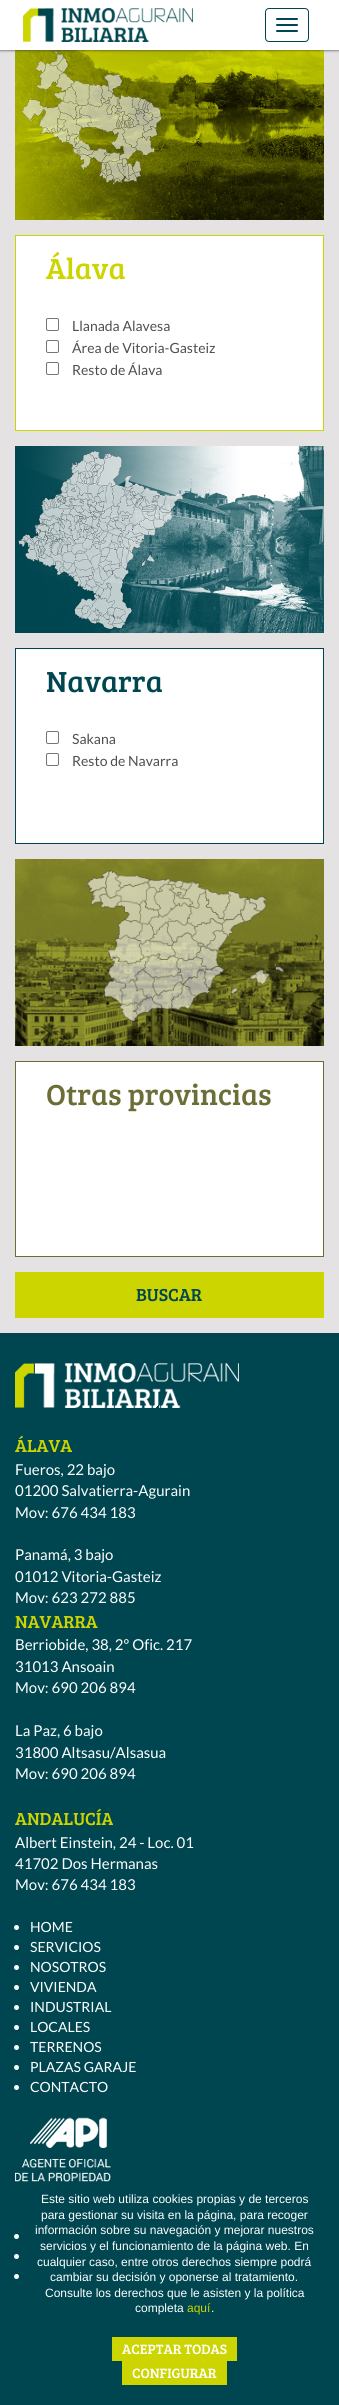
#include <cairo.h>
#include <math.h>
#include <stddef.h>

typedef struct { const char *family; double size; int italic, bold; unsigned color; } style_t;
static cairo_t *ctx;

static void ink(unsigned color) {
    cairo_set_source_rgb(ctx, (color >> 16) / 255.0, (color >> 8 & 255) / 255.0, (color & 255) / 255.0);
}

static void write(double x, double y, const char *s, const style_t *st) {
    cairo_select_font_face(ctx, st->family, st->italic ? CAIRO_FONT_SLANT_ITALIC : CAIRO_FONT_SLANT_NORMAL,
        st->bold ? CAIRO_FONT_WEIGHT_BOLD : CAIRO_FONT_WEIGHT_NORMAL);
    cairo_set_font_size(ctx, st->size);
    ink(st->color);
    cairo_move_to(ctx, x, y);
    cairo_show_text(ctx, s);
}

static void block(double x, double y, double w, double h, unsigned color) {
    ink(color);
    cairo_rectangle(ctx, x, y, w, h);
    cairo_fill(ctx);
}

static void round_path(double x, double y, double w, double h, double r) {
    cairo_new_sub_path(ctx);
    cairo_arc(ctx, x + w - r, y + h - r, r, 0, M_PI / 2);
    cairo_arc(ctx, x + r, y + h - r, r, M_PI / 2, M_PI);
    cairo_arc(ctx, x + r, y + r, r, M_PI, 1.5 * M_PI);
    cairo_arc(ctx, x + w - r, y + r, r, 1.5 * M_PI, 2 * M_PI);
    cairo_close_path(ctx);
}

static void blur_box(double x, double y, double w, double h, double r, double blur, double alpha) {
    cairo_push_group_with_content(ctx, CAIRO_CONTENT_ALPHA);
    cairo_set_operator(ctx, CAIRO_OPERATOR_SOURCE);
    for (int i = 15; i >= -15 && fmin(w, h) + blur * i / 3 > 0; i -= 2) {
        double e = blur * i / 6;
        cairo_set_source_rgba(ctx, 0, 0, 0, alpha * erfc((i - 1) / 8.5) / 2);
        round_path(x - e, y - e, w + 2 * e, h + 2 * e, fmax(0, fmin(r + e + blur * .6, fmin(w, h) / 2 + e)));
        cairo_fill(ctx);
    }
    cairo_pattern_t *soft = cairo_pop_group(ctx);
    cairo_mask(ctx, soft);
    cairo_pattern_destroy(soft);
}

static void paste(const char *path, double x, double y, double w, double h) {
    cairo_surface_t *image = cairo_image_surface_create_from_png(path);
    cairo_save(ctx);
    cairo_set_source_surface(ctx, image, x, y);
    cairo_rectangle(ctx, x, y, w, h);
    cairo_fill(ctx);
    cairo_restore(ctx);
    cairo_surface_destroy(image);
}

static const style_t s1 = {"Bree Serif", 30, 0, 0, 0xcdd400};
static const style_t s2 = {"Lato", 14, 0, 0, 0x514e4b};
static const style_t s3 = {"Bree Serif", 30, 0, 0, 0x004650};
static const style_t s4 = {"Bree Serif", 30, 0, 0, 0x6c6e37};
static const style_t s5 = {"Bree Serif", 18, 0, 0, 0x004650};
static const style_t s6 = {"Bree Serif", 18, 0, 0, 0xcdd400};
static const style_t s7 = {"Lato", 15, 0, 0, 0xffffff};
static const style_t s8 = {"Lato", 14, 0, 0, 0xffffff};
static const style_t s9 = {"Liberation Sans", 12, 0, 0, 0xffffff};
static const style_t s10 = {"Liberation Sans", 12, 0, 0, 0xcdd400};
static const style_t s11 = {"Bree Serif", 14, 0, 0, 0xffffff};

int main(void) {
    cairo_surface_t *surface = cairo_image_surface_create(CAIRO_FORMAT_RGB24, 339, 2405);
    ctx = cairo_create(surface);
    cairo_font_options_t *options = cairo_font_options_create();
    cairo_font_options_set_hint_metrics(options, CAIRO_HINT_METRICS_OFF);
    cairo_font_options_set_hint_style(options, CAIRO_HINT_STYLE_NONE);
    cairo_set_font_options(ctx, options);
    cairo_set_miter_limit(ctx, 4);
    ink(0xe4e2e2);
    cairo_paint(ctx);
    paste("pic2.png", 15, 50, 309, 170);
    ink(0x333333);
    blur_box(0, 0, 339, 50, 0, 1.5, 1);
    block(0, 0, 339, 50, 0xffffff);
    paste("pic1.png", 23, 8, 170, 34);
    round_path(265.5, 8.5, 43, 33, 3.5);
    ink(0x004650);
    cairo_set_line_width(ctx, 1);
    cairo_stroke(ctx);
    round_path(276, 18, 22, 2, 1);
    cairo_fill(ctx);
    round_path(276, 24, 22, 2, 1);
    cairo_fill(ctx);
    round_path(276, 30, 22, 2, 1);
    cairo_fill(ctx);
    ink(0xffffff);
    cairo_rectangle(ctx, 15.5, 235.5, 308, 195);
    cairo_fill_preserve(ctx);
    ink(0xcdd400);
    cairo_stroke(ctx);
    write(46, 279, "Álava", &s1);
    round_path(46.5, 318.5, 12, 12, 1.5);
    ink(0x767676);
    cairo_stroke(ctx);
    write(72, 331, "Llanada Alavesa", &s2);
    round_path(46.5, 340.5, 12, 12, 1.5);
    ink(0x767676);
    cairo_stroke(ctx);
    write(72, 353, "Área de Vitoria-Gasteiz", &s2);
    round_path(46.5, 362.5, 12, 12, 1.5);
    ink(0x767676);
    cairo_stroke(ctx);
    write(72, 375, "Resto de Álava", &s2);
    paste("pic3.png", 15, 446, 309, 187);
    ink(0xffffff);
    cairo_rectangle(ctx, 15.5, 648.5, 308, 195);
    cairo_fill_preserve(ctx);
    ink(0x004650);
    cairo_stroke(ctx);
    write(46, 692, "Navarra", &s3);
    round_path(46.5, 731.5, 12, 12, 1.5);
    ink(0x767676);
    cairo_stroke(ctx);
    write(72, 744, "Sakana", &s2);
    round_path(46.5, 753.5, 12, 12, 1.5);
    ink(0x767676);
    cairo_stroke(ctx);
    write(72, 766, "Resto de Navarra", &s2);
    paste("pic4.png", 15, 859, 309, 187);
    ink(0xffffff);
    cairo_rectangle(ctx, 15.5, 1061.5, 308, 195);
    cairo_fill_preserve(ctx);
    ink(0x6c6e37);
    cairo_stroke(ctx);
    write(46, 1105, "Otras provincias", &s4);
    block(15, 1272, 309, 46, 0xccd500);
    write(136, 1301, "BUSCAR", &s5);
    block(0, 1333, 339, 1072, 0x004650);
    paste("pic5.png", 15, 1363, 224, 45);
    write(15, 1452, "ÁLAVA", &s6);
    write(15, 1475, "Fueros, 22 bajo", &s7);
    write(15, 1496, "01200 Salvatierra-Agurain", &s7);
    write(15, 1518, "Mov: 676 434 183", &s7);
    write(15, 1560, "Panamá, 3 bajo", &s7);
    write(15, 1582, "01012 Vitoria-Gasteiz", &s7);
    write(15, 1603, "Mov: 623 272 885", &s7);
    write(15, 1628, "NAVARRA", &s6);
    write(15, 1650, "Berriobide, 38, 2º Ofic. 217", &s7);
    write(15, 1672, "31013 Ansoain", &s7);
    write(15, 1693, "Mov: 690 206 894", &s7);
    write(15, 1736, "La Paz, 6 bajo", &s7);
    write(15, 1758, "31800 Altsasu/Alsasua", &s7);
    write(15, 1779, "Mov: 690 206 894", &s7);
    write(15, 1825, "ANDALUCÍA", &s6);
    write(15, 1848, "Albert Einstein, 24 - Loc. 01", &s7);
    write(15, 1869, "41702 Dos Hermanas", &s7);
    write(15, 1890, "Mov: 676 434 183", &s7);
    cairo_new_path(ctx);
    cairo_arc(ctx, 16.5, 1927.5, 2.5, 0, 2 * M_PI);
    cairo_fill(ctx);
    write(30, 1932, "HOME", &s8);
    cairo_new_path(ctx);
    cairo_arc(ctx, 16.5, 1947.5, 2.5, 0, 2 * M_PI);
    cairo_fill(ctx);
    write(30, 1952, "SERVICIOS", &s8);
    cairo_new_path(ctx);
    cairo_arc(ctx, 16.5, 1967.5, 2.5, 0, 2 * M_PI);
    cairo_fill(ctx);
    write(30, 1972, "NOSOTROS", &s8);
    cairo_new_path(ctx);
    cairo_arc(ctx, 16.5, 1987.5, 2.5, 0, 2 * M_PI);
    cairo_fill(ctx);
    write(30, 1992, "VIVIENDA", &s8);
    cairo_new_path(ctx);
    cairo_arc(ctx, 16.5, 2007.5, 2.5, 0, 2 * M_PI);
    cairo_fill(ctx);
    write(30, 2012, "INDUSTRIAL", &s8);
    cairo_new_path(ctx);
    cairo_arc(ctx, 16.5, 2027.5, 2.5, 0, 2 * M_PI);
    cairo_fill(ctx);
    write(30, 2032, "LOCALES", &s8);
    cairo_new_path(ctx);
    cairo_arc(ctx, 16.5, 2047.5, 2.5, 0, 2 * M_PI);
    cairo_fill(ctx);
    write(30, 2052, "TERRENOS", &s8);
    cairo_new_path(ctx);
    cairo_arc(ctx, 16.5, 2067.5, 2.5, 0, 2 * M_PI);
    cairo_fill(ctx);
    write(30, 2072, "PLAZAS GARAJE", &s8);
    cairo_new_path(ctx);
    cairo_arc(ctx, 16.5, 2087.5, 2.5, 0, 2 * M_PI);
    cairo_fill(ctx);
    write(30, 2092, "CONTACTO", &s8);
    paste("pic6.png", 15, 2117, 96, 65);
    cairo_arc(ctx, 16.5, 2236.5, 2.5, 0, 2 * M_PI);
    cairo_fill(ctx);
    cairo_arc(ctx, 16.5, 2256.5, 2.5, 0, 2 * M_PI);
    cairo_fill(ctx);
    cairo_arc(ctx, 16.5, 2276.5, 2.5, 0, 2 * M_PI);
    cairo_fill(ctx);
    write(41, 2203, "Este sitio web utiliza cookies propias y de terceros", &s9);
    write(41, 2219, "para gestionar su visita en la página, para recoger", &s9);
    write(35, 2234, "información sobre su navegación y mejorar nuestros", &s9);
    write(40, 2250, "servicios y el funcionamiento de la página web. En", &s9);
    write(37, 2266, "cualquier caso, entre otros derechos siempre podrá", &s9);
    write(50, 2281, "cambiar su decisión y oponerse al tratamiento.", &s9);
    write(45, 2297, "Consulte los derechos que le asisten y la política", &s9);
    write(135, 2312, "completa", &s9);
    write(187, 2312, "aquí", &s10);
    write(211, 2312, ".", &s9);
    block(112, 2337, 125, 24, 0xccd500);
    write(122, 2354, "ACEPTAR TODAS", &s11);
    block(122, 2361, 105, 24, 0xccd500);
    write(132, 2378, "CONFIGURAR", &s11);
    cairo_surface_write_to_png(surface, "screenshot.png");
    cairo_font_options_destroy(options);
    cairo_destroy(ctx);
    cairo_surface_destroy(surface);
    return 0;
}
